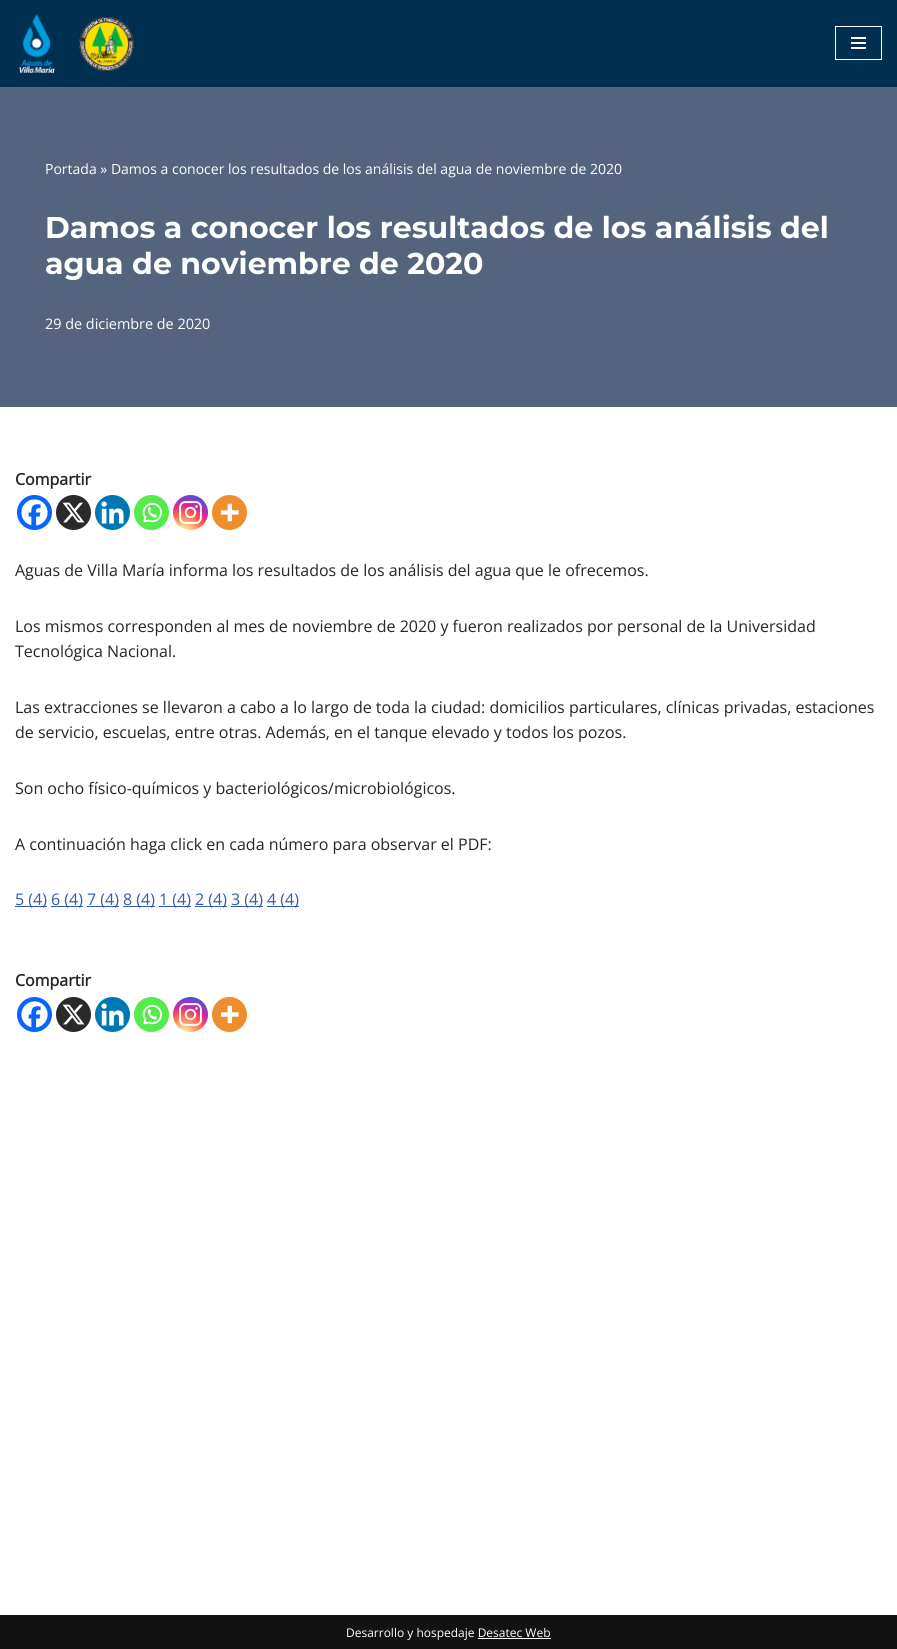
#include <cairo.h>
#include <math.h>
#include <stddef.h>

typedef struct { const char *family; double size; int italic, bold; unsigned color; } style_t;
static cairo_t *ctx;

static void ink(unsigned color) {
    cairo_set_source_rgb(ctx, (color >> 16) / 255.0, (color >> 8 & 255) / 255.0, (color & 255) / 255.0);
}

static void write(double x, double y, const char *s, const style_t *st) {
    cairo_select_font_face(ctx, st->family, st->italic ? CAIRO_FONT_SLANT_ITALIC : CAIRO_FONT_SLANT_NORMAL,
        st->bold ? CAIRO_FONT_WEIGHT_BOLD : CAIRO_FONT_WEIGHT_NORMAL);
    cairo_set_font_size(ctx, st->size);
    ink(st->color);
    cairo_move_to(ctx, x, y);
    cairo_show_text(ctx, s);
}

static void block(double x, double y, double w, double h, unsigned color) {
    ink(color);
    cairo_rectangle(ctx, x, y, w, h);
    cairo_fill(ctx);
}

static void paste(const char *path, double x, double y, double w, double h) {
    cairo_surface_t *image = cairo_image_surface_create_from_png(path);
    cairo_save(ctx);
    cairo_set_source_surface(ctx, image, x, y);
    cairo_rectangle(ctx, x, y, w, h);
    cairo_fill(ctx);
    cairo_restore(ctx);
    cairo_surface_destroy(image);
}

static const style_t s1 = {"Open Sans", 14, 0, 0, 0xffffff};
static const style_t s2 = {"Montserrat", 30, 0, 1, 0xffffff};
static const style_t s3 = {"Open Sans", 14.4, 0, 0, 0xffffff};
static const style_t s4 = {"Open Sans", 16, 0, 1, 0x272626};
static const style_t s5 = {"Open Sans", 16, 0, 0, 0x272626};
static const style_t s6 = {"Open Sans", 16, 0, 0, 0x2f5aae};
static const style_t s7 = {"Open Sans", 12, 0, 0, 0xffffff};

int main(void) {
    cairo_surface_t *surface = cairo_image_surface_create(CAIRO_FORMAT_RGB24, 897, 1649);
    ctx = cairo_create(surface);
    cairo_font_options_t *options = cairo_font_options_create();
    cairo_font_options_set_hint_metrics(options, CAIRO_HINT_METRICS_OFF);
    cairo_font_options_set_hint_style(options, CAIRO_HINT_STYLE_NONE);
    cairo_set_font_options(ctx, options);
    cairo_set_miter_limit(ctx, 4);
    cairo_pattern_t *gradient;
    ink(0xffffff);
    cairo_paint(ctx);
    block(0, 0, 897, 87, 0x002f51);
    paste("pic1.png", 19, 14, 115, 59);
    cairo_rectangle(ctx, 835.5, 26.5, 46, 33);
    ink(0xffffff);
    cairo_set_line_width(ctx, 1);
    cairo_stroke(ctx);
    block(851, 37, 15, 2, 0xffffff);
    block(851, 42, 15, 2, 0xffffff);
    block(851, 47, 15, 2, 0xffffff);
    block(0, 87, 897, 320, 0x54647f);
    write(45, 174, "Portada » Damos a conocer los resultados de los análisis del agua de noviembre de 2020", &s1);
    write(45, 238, "Damos a conocer los resultados de los análisis del", &s2);
    write(45, 274, "agua de noviembre de 2020", &s2);
    write(45, 329, "29 de diciembre de 2020", &s3);
    write(15, 485, "Compartir", &s4);
    ink(0x0765fe);
    cairo_new_path(ctx);
    cairo_arc(ctx, 34.5, 512.5, 17.5, 0, 2 * M_PI);
    cairo_fill(ctx);
    paste("pic2.png", 21, 499, 27, 27);
    ink(0x2a2a2a);
    cairo_arc(ctx, 73.5, 512.5, 17.5, 0, 2 * M_PI);
    cairo_fill(ctx);
    paste("pic3.png", 62, 502, 23, 21);
    ink(0x0077b5);
    cairo_arc(ctx, 112.5, 512.5, 17.5, 0, 2 * M_PI);
    cairo_fill(ctx);
    paste("pic4.png", 101, 501, 23, 23);
    ink(0x55eb4c);
    cairo_arc(ctx, 151.5, 512.5, 17.5, 0, 2 * M_PI);
    cairo_fill(ctx);
    paste("pic5.png", 142, 502, 20, 21);
    gradient = cairo_pattern_create_radial(184, 532, 0, 184, 532, 45);
    cairo_pattern_add_color_stop_rgba(gradient, 0, 0.992, 0.957, 0.592, 1);
    cairo_pattern_add_color_stop_rgba(gradient, 0.05, 0.992, 0.957, 0.592, 1);
    cairo_pattern_add_color_stop_rgba(gradient, 0.45, 0.992, 0.349, 0.286, 1);
    cairo_pattern_add_color_stop_rgba(gradient, 0.6, 0.839, 0.141, 0.624, 1);
    cairo_pattern_add_color_stop_rgba(gradient, 0.9, 0.157, 0.353, 0.922, 1);
    cairo_set_source(ctx, gradient);
    cairo_pattern_destroy(gradient);
    cairo_arc(ctx, 190.5, 512.5, 17.5, 0, 2 * M_PI);
    cairo_fill(ctx);
    paste("pic6.png", 179, 501, 23, 23);
    ink(0xee8e2d);
    cairo_arc(ctx, 229.5, 512.5, 17.5, 0, 2 * M_PI);
    cairo_fill(ctx);
    paste("pic7.png", 221, 503, 18, 19);
    write(15, 576, "Aguas de Villa María informa los resultados de los análisis del agua que le ofrecemos.", &s5);
    write(15, 632, "Los mismos corresponden al mes de noviembre de 2020 y fueron realizados por personal de la Universidad", &s5);
    write(15, 657, "Tecnológica Nacional.", &s5);
    write(15, 713, "Las extracciones se llevaron a cabo a lo largo de toda la ciudad: domicilios particulares, clínicas privadas, estaciones", &s5);
    write(15, 738, "de servicio, escuelas, entre otras. Además, en el tanque elevado y todos los pozos.", &s5);
    write(15, 794, "Son ocho físico-químicos y bacteriológicos/microbiológicos.", &s5);
    write(15, 850, "A continuación haga click en cada número para observar el PDF:", &s5);
    block(15, 906, 32, 1, 0x2f5aae);
    write(15, 905, "5 (4)", &s6);
    block(51, 906, 32, 1, 0x2f5aae);
    write(51, 905, "6 (4)", &s6);
    block(87, 906, 32, 1, 0x2f5aae);
    write(87, 905, "7 (4)", &s6);
    block(123, 906, 32, 1, 0x2f5aae);
    write(123, 905, "8 (4)", &s6);
    block(159, 906, 32, 1, 0x2f5aae);
    write(159, 905, "1 (4)", &s6);
    block(195, 906, 32, 1, 0x2f5aae);
    write(195, 905, "2 (4)", &s6);
    block(231, 906, 32, 1, 0x2f5aae);
    write(231, 905, "3 (4)", &s6);
    block(267, 906, 32, 1, 0x2f5aae);
    write(267, 905, "4 (4)", &s6);
    write(15, 986, "Compartir", &s4);
    ink(0x0765fe);
    cairo_new_path(ctx);
    cairo_arc(ctx, 34.5, 1014.5, 17.5, 0, 2 * M_PI);
    cairo_fill(ctx);
    paste("pic2.png", 21, 1001, 27, 27);
    ink(0x2a2a2a);
    cairo_arc(ctx, 73.5, 1014.5, 17.5, 0, 2 * M_PI);
    cairo_fill(ctx);
    paste("pic3.png", 62, 1004, 23, 21);
    ink(0x0077b5);
    cairo_arc(ctx, 112.5, 1014.5, 17.5, 0, 2 * M_PI);
    cairo_fill(ctx);
    paste("pic4.png", 101, 1003, 23, 23);
    ink(0x55eb4c);
    cairo_arc(ctx, 151.5, 1014.5, 17.5, 0, 2 * M_PI);
    cairo_fill(ctx);
    paste("pic5.png", 142, 1004, 20, 21);
    gradient = cairo_pattern_create_radial(184, 1034, 0, 184, 1034, 45);
    cairo_pattern_add_color_stop_rgba(gradient, 0, 0.992, 0.957, 0.592, 1);
    cairo_pattern_add_color_stop_rgba(gradient, 0.05, 0.992, 0.957, 0.592, 1);
    cairo_pattern_add_color_stop_rgba(gradient, 0.45, 0.992, 0.349, 0.286, 1);
    cairo_pattern_add_color_stop_rgba(gradient, 0.6, 0.839, 0.141, 0.624, 1);
    cairo_pattern_add_color_stop_rgba(gradient, 0.9, 0.157, 0.353, 0.922, 1);
    cairo_set_source(ctx, gradient);
    cairo_pattern_destroy(gradient);
    cairo_arc(ctx, 190.5, 1014.5, 17.5, 0, 2 * M_PI);
    cairo_fill(ctx);
    paste("pic6.png", 179, 1003, 23, 23);
    ink(0xee8e2d);
    cairo_arc(ctx, 229.5, 1014.5, 17.5, 0, 2 * M_PI);
    cairo_fill(ctx);
    paste("pic7.png", 221, 1005, 18, 19);
    block(0, 1615, 897, 34, 0x121212);
    write(346, 1637, "Desarrollo y hospedaje Desatec Web", &s7);
    block(478, 1638, 73, 1, 0xffffff);
    cairo_surface_write_to_png(surface, "screenshot.png");
    cairo_font_options_destroy(options);
    cairo_destroy(ctx);
    cairo_surface_destroy(surface);
    return 0;
}
